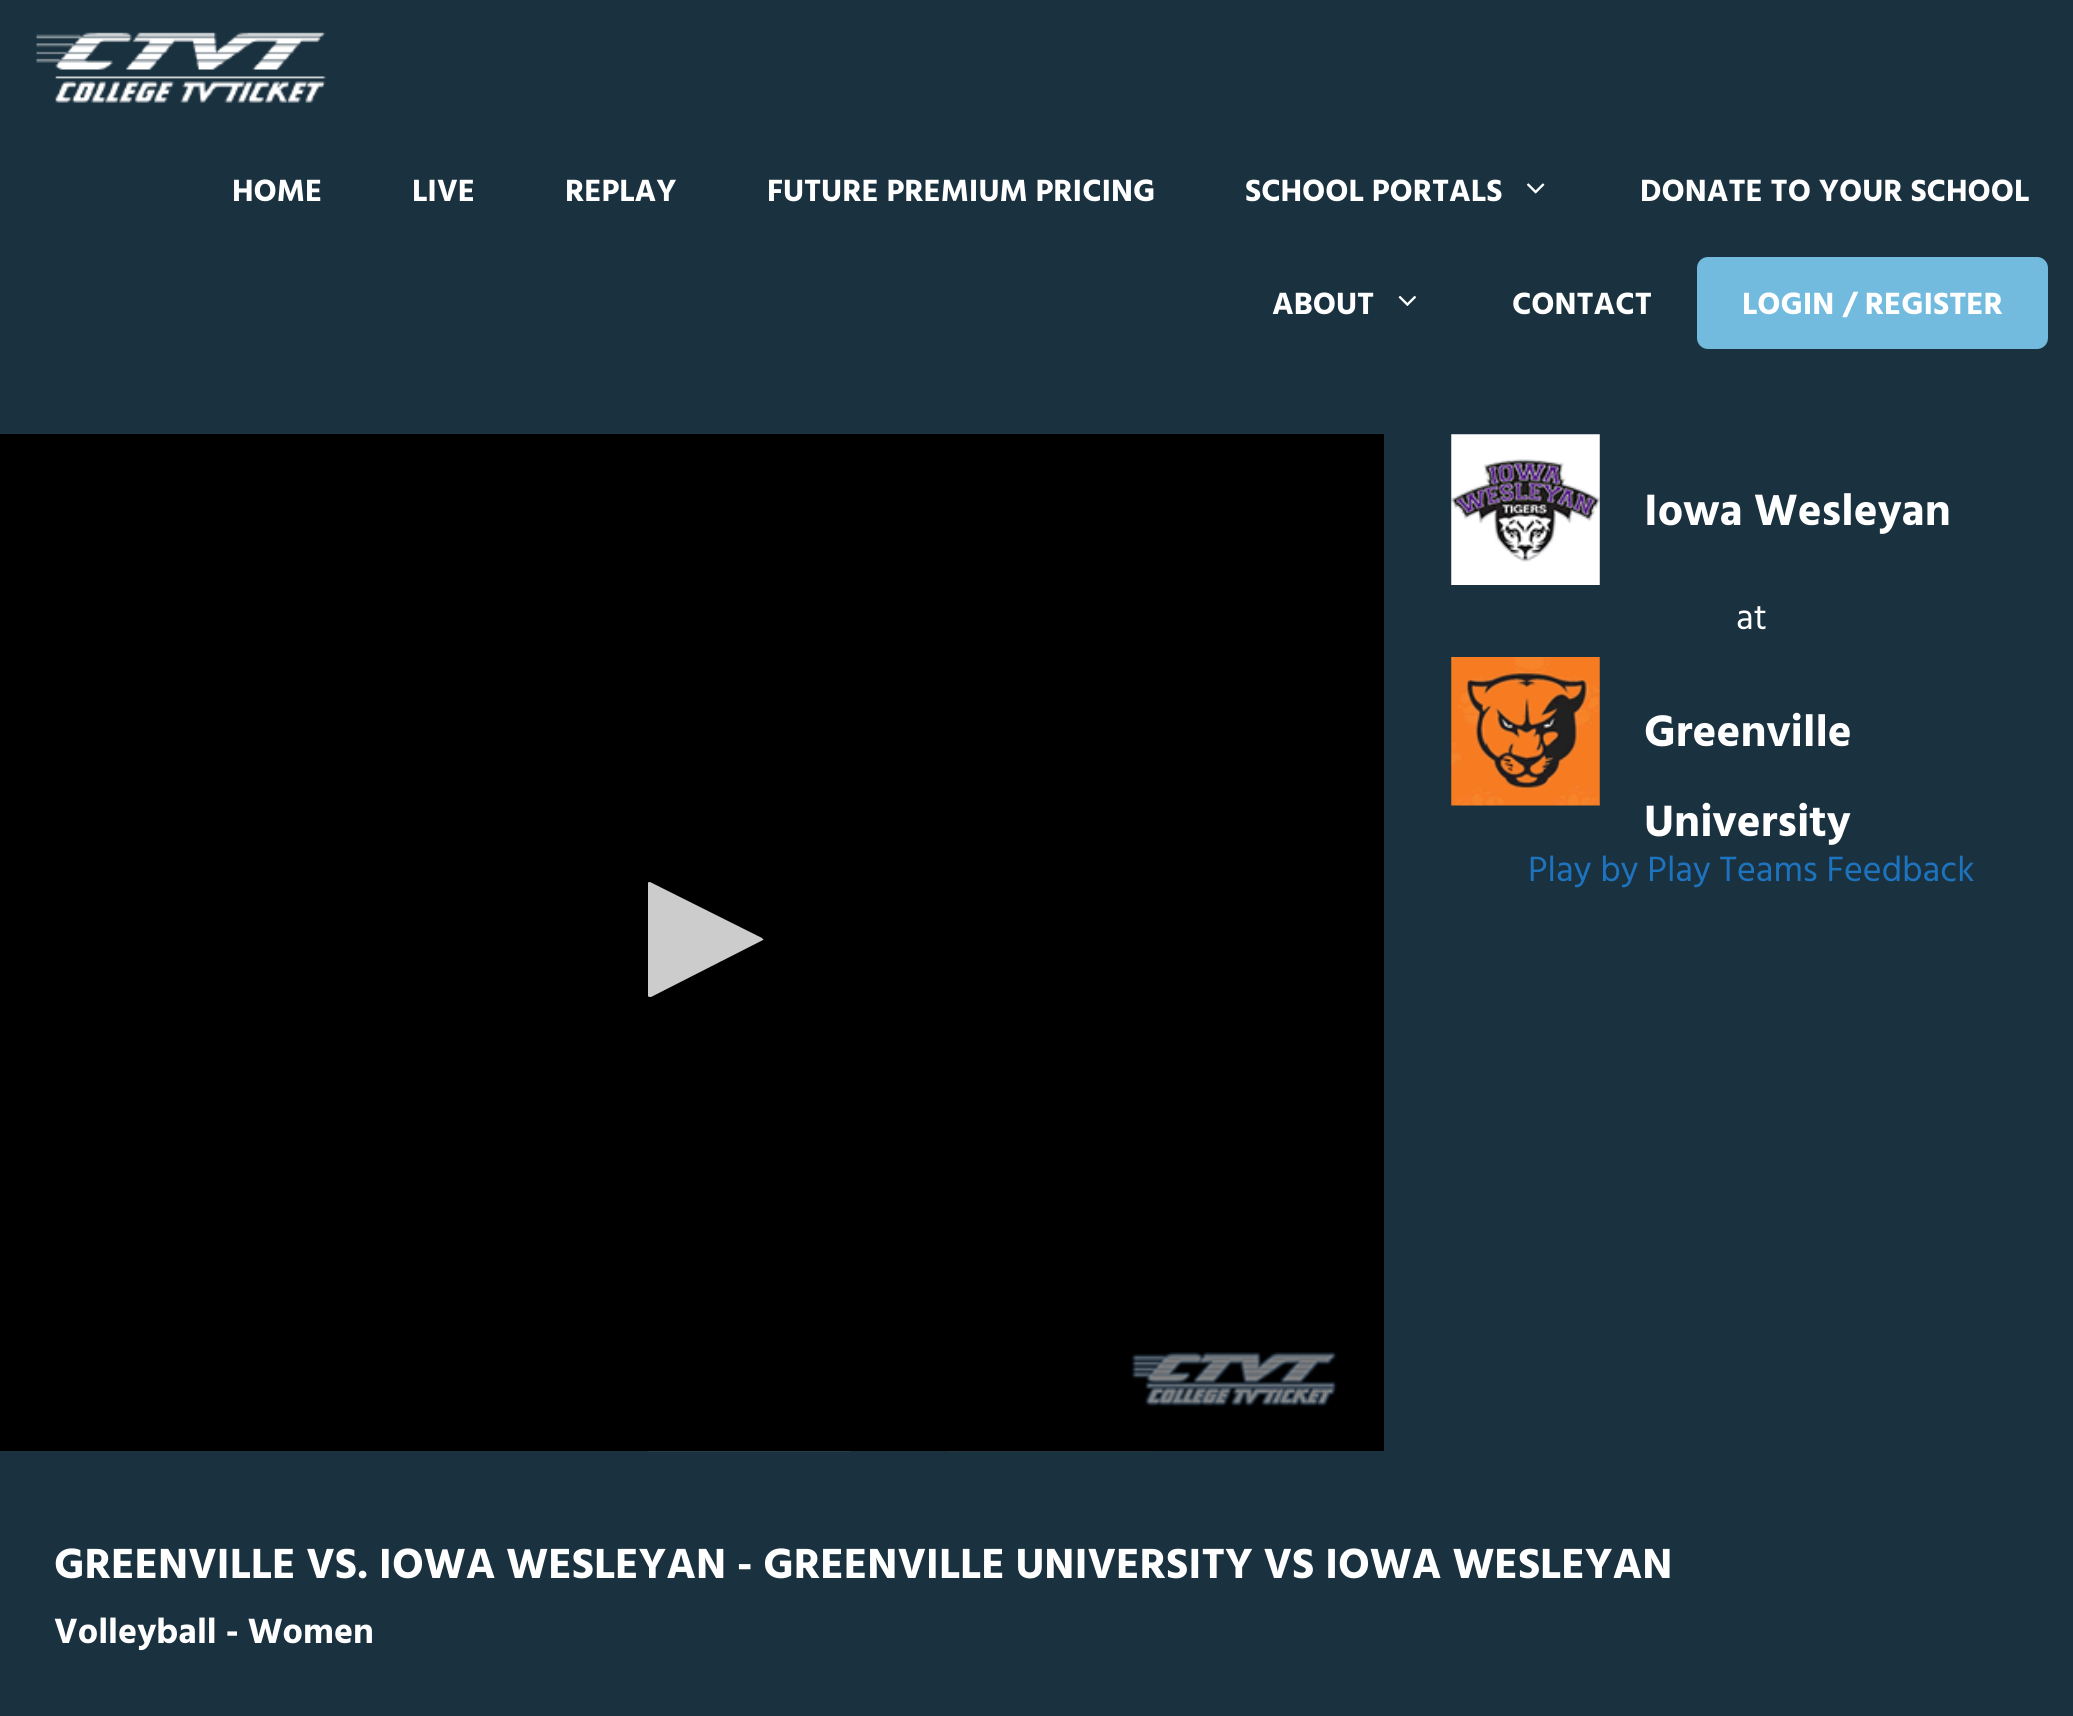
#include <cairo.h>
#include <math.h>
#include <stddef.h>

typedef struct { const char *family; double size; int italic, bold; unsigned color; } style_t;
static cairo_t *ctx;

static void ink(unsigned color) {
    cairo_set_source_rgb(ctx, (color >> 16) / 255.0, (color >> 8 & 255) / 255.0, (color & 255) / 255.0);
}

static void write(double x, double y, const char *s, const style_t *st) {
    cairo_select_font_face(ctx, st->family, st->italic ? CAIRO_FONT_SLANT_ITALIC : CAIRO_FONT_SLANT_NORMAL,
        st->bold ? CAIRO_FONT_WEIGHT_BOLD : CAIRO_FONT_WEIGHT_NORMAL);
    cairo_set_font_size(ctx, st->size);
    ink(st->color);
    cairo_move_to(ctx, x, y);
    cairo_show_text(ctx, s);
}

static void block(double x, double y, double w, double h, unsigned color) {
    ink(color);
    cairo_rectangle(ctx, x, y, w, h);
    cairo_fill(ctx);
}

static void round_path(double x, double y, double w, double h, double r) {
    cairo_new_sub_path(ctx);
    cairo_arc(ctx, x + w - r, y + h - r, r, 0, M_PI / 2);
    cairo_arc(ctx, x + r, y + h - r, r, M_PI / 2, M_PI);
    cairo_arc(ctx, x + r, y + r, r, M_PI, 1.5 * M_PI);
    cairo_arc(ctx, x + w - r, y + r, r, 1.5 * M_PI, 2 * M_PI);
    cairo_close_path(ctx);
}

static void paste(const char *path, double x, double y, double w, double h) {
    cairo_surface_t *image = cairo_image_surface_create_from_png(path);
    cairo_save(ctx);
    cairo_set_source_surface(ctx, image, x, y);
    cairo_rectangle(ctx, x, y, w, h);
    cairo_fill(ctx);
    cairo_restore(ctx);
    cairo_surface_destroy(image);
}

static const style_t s1 = {"Hind", 31.5, 0, 1, 0xffffff};
static const style_t s2 = {"Hind", 45, 0, 1, 0xffffff};
static const style_t s3 = {"Hind", 36, 0, 0, 0xffffff};
static const style_t s4 = {"Hind", 36, 0, 0, 0x1e73be};
static const style_t s5 = {"Hind", 43.2, 0, 1, 0xffffff};
static const style_t s6 = {"Hind", 36, 0, 1, 0xffffff};

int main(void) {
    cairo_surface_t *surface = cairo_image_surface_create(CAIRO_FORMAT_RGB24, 2073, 1716);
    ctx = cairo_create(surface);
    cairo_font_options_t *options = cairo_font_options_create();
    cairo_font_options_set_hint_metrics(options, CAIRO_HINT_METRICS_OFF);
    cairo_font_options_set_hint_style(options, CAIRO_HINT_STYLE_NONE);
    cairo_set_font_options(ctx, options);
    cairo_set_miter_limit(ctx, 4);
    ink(0x1a313f);
    cairo_paint(ctx);
    paste("pic1.png", 36, 32, 290, 71);
    write(232, 201, "HOME", &s1);
    write(412, 201, "LIVE", &s1);
    write(565, 201, "REPLAY", &s1);
    write(767, 201, "FUTURE PREMIUM PRICING", &s1);
    write(1245, 201, "SCHOOL PORTALS", &s1);
    paste("pic2.png", 1526, 183, 19, 11);
    write(1640, 201, "DONATE TO YOUR SCHOOL", &s1);
    write(1272, 314, "ABOUT", &s1);
    paste("pic3.png", 1398, 295, 19, 11);
    write(1512, 314, "CONTACT", &s1);
    ink(0x72bbdf);
    round_path(1697, 257, 351, 92, 11);
    cairo_fill(ctx);
    write(1742, 314, "LOGIN / REGISTER", &s1);
    block(0, 434, 1384, 1017, 0x000000);
    ink(0xcccccc);
    cairo_new_path(ctx);
    cairo_move_to(ctx, 651, 997);
    cairo_curve_to(ctx, 650, 997, 648, 997, 648, 996);
    cairo_line_to(ctx, 648, 883);
    cairo_curve_to(ctx, 648, 882, 649, 882, 650, 882);
    cairo_line_to(ctx, 762, 938);
    cairo_curve_to(ctx, 763, 939, 764, 940, 763, 940);
    cairo_close_path(ctx);
    cairo_fill(ctx);
    paste("pic4.png", 1131, 1352, 206, 55);
    paste("pic5.png", 648, 1451, 203, 1);
    paste("pic6.png", 949, 1451, 203, 1);
    paste("pic7.png", 1451, 434, 149, 151);
    write(1644, 525, "Iowa Wesleyan", &s2);
    write(1736, 629, "at", &s3);
    paste("pic8.png", 1451, 657, 149, 149);
    write(1644, 746, "Greenville", &s2);
    write(1644, 836, "University", &s2);
    write(1528, 881, "Play by Play Teams Feedback", &s4);
    write(54, 1578, "GREENVILLE VS. IOWA WESLEYAN - GREENVILLE UNIVERSITY VS IOWA WESLEYAN", &s5);
    write(54, 1643, "Volleyball - Women", &s6);
    cairo_surface_write_to_png(surface, "screenshot.png");
    cairo_font_options_destroy(options);
    cairo_destroy(ctx);
    cairo_surface_destroy(surface);
    return 0;
}
